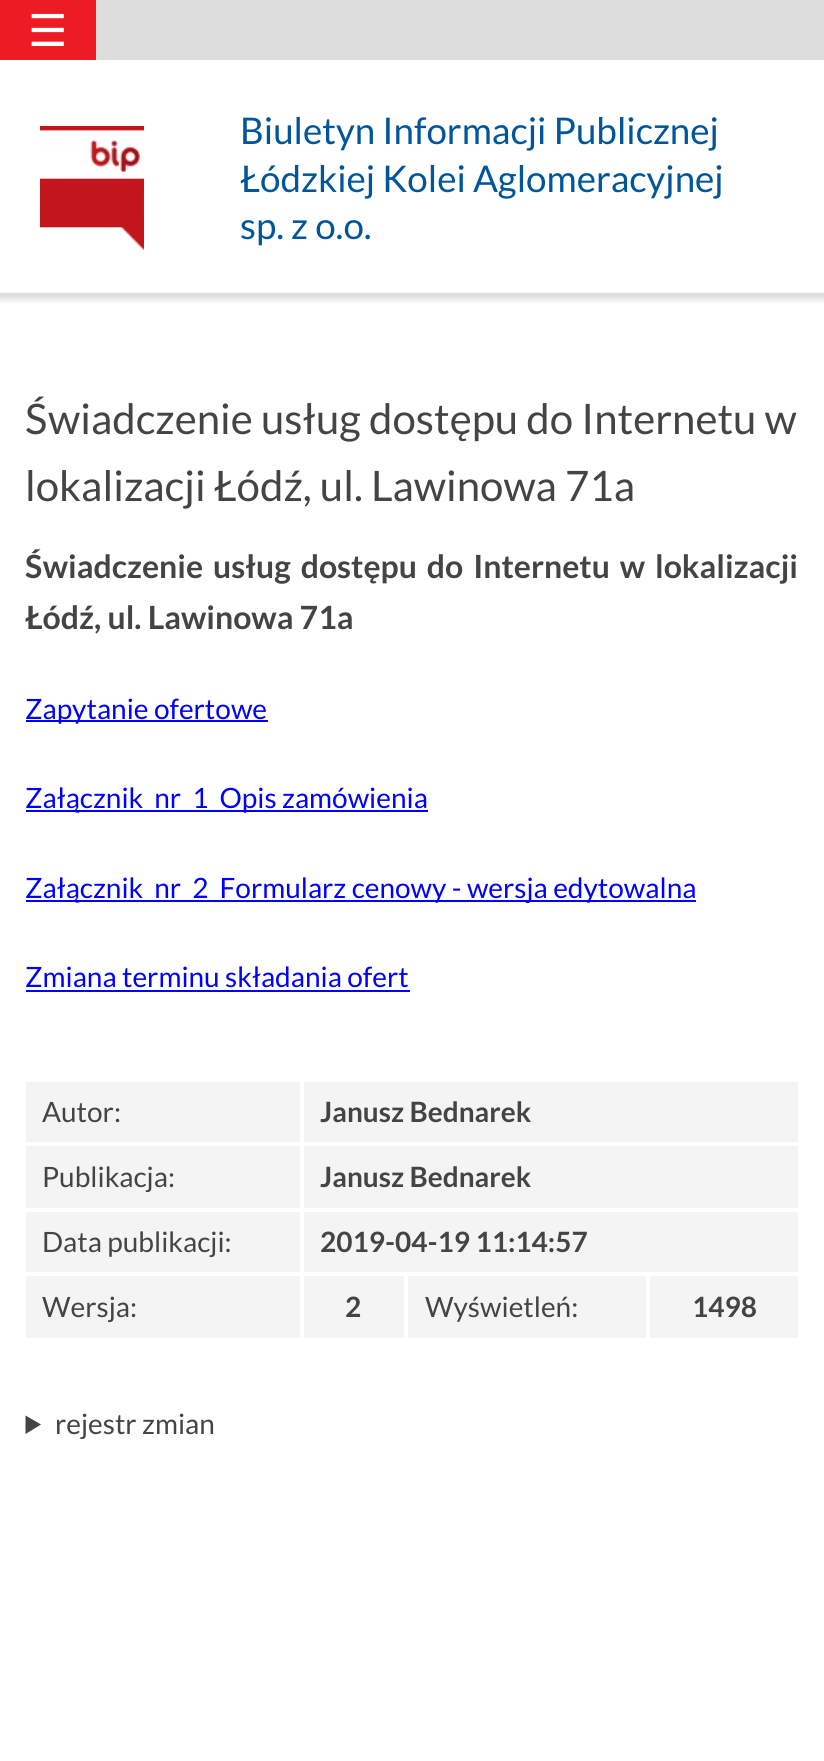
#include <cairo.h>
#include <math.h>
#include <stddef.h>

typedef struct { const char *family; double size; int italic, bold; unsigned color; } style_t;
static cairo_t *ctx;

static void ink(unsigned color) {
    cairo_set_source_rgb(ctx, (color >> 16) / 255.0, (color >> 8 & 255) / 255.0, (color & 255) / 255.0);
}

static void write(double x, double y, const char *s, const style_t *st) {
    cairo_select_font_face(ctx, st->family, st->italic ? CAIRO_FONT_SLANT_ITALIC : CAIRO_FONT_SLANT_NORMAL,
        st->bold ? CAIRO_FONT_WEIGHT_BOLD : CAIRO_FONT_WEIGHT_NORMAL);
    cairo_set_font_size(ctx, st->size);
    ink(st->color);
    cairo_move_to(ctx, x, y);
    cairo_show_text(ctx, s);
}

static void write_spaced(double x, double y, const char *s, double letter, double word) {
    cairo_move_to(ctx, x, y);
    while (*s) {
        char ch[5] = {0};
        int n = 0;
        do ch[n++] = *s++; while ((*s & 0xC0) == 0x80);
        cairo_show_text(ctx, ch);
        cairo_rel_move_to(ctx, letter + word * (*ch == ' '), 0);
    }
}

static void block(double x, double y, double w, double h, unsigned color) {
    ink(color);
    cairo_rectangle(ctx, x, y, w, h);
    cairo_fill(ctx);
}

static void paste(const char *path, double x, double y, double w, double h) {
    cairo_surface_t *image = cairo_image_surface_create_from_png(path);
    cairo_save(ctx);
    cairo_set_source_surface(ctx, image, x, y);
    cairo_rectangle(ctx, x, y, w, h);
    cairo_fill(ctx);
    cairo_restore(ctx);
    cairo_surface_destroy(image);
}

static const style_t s1 = {"DejaVu Sans", 44, 0, 0, 0xffffff};
static const style_t s2 = {"Lato", 36.75, 0, 0, 0x005699};
static const style_t s3 = {"Lato", 42, 0, 0, 0x444444};
static const style_t s4 = {"Lato", 32, 0, 1, 0x444444};
static const style_t s5 = {"Lato", 28, 0, 0, 0x0000ff};
static const style_t s6 = {"Lato", 28, 0, 0, 0x444444};
static const style_t s7 = {"Lato", 28, 0, 1, 0x444444};

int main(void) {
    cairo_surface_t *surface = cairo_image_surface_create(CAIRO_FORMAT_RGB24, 824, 1761);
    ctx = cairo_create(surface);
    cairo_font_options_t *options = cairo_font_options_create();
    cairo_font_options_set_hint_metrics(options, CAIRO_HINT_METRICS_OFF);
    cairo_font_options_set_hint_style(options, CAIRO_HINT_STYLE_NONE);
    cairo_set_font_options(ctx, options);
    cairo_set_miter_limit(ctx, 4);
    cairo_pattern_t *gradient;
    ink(0xdddddd);
    cairo_paint(ctx);
    block(0, 0, 96, 60, 0xed1b24);
    write(28, 46, "☰", &s1);
    block(0, 60, 824, 1701, 0xffffff);
    paste("pic1.png", 40, 126, 104, 124);
    write(240, 144, "Biuletyn Informacji Publicznej", &s2);
    write(240, 192, "Łódzkiej Kolei Aglomeracyjnej", &s2);
    write(240, 239, "sp. z o.o.", &s2);
    gradient = cairo_pattern_create_linear(412, 60, 412, 304);
    cairo_pattern_add_color_stop_rgba(gradient, 0, 0, 0, 0, 0);
    cairo_pattern_add_color_stop_rgba(gradient, 0.95, 0, 0, 0, 0);
    cairo_pattern_add_color_stop_rgba(gradient, 0.96, 0, 0, 0, 0.15);
    cairo_pattern_add_color_stop_rgba(gradient, 1, 0, 0, 0, 0);
    cairo_set_source(ctx, gradient);
    cairo_pattern_destroy(gradient);
    cairo_rectangle(ctx, 0, 292, 824, 11);
    cairo_fill(ctx);
    write(25, 434, "Świadczenie usług dostępu do Internetu w", &s3);
    write(25, 501, "lokalizacji Łódź, ul. Lawinowa 71a", &s3);
    cairo_select_font_face(ctx, "Lato", CAIRO_FONT_SLANT_NORMAL, CAIRO_FONT_WEIGHT_BOLD);
    cairo_set_font_size(ctx, 32);
    write_spaced(25, 578, "Świadczenie usług dostępu do Internetu w lokalizacji", 0, 3.75);
    write(25, 629, "Łódź, ul. Lawinowa 71a", &s4);
    block(26, 720, 242, 2, 0x0000ff);
    write(25, 719, "Zapytanie ofertowe", &s5);
    block(26, 810, 402, 2, 0x0000ff);
    write(25, 808, "Załącznik_nr_1_Opis zamówienia", &s5);
    block(26, 900, 670, 2, 0x0000ff);
    write(25, 898, "Załącznik_nr_2_Formularz cenowy - wersja edytowalna", &s5);
    write(25, 987, "Zmiana terminu składania ofert", &s5);
    block(26, 990, 384, 2, 0x0000ff);
    block(26, 1082, 274, 60, 0xf4f4f4);
    write(42, 1122, "Autor:", &s6);
    block(304, 1082, 494, 60, 0xf4f4f4);
    write(320, 1122, "Janusz Bednarek", &s7);
    block(26, 1146, 274, 62, 0xf4f4f4);
    write(42, 1187, "Publikacja:", &s6);
    block(304, 1146, 494, 62, 0xf4f4f4);
    write(320, 1187, "Janusz Bednarek", &s7);
    block(26, 1212, 274, 60, 0xf4f4f4);
    write(42, 1252, "Data publikacji:", &s6);
    block(304, 1212, 494, 60, 0xf4f4f4);
    write(320, 1252, "2019-04-19 11:14:57", &s7);
    block(26, 1276, 274, 62, 0xf4f4f4);
    write(42, 1317, "Wersja:", &s6);
    block(304, 1276, 100, 62, 0xf4f4f4);
    write(345, 1317, "2", &s7);
    block(408, 1276, 238, 62, 0xf4f4f4);
    write(425, 1317, "Wyświetleń:", &s6);
    block(650, 1276, 148, 62, 0xf4f4f4);
    write(692, 1317, "1498", &s7);
    cairo_new_path(ctx);
    cairo_move_to(ctx, 25.5, 1415.5);
    cairo_line_to(ctx, 41, 1424.5);
    cairo_line_to(ctx, 25.5, 1434);
    cairo_close_path(ctx);
    cairo_fill(ctx);
    write(55, 1434, "rejestr zmian", &s6);
    cairo_surface_write_to_png(surface, "screenshot.png");
    cairo_font_options_destroy(options);
    cairo_destroy(ctx);
    cairo_surface_destroy(surface);
    return 0;
}
